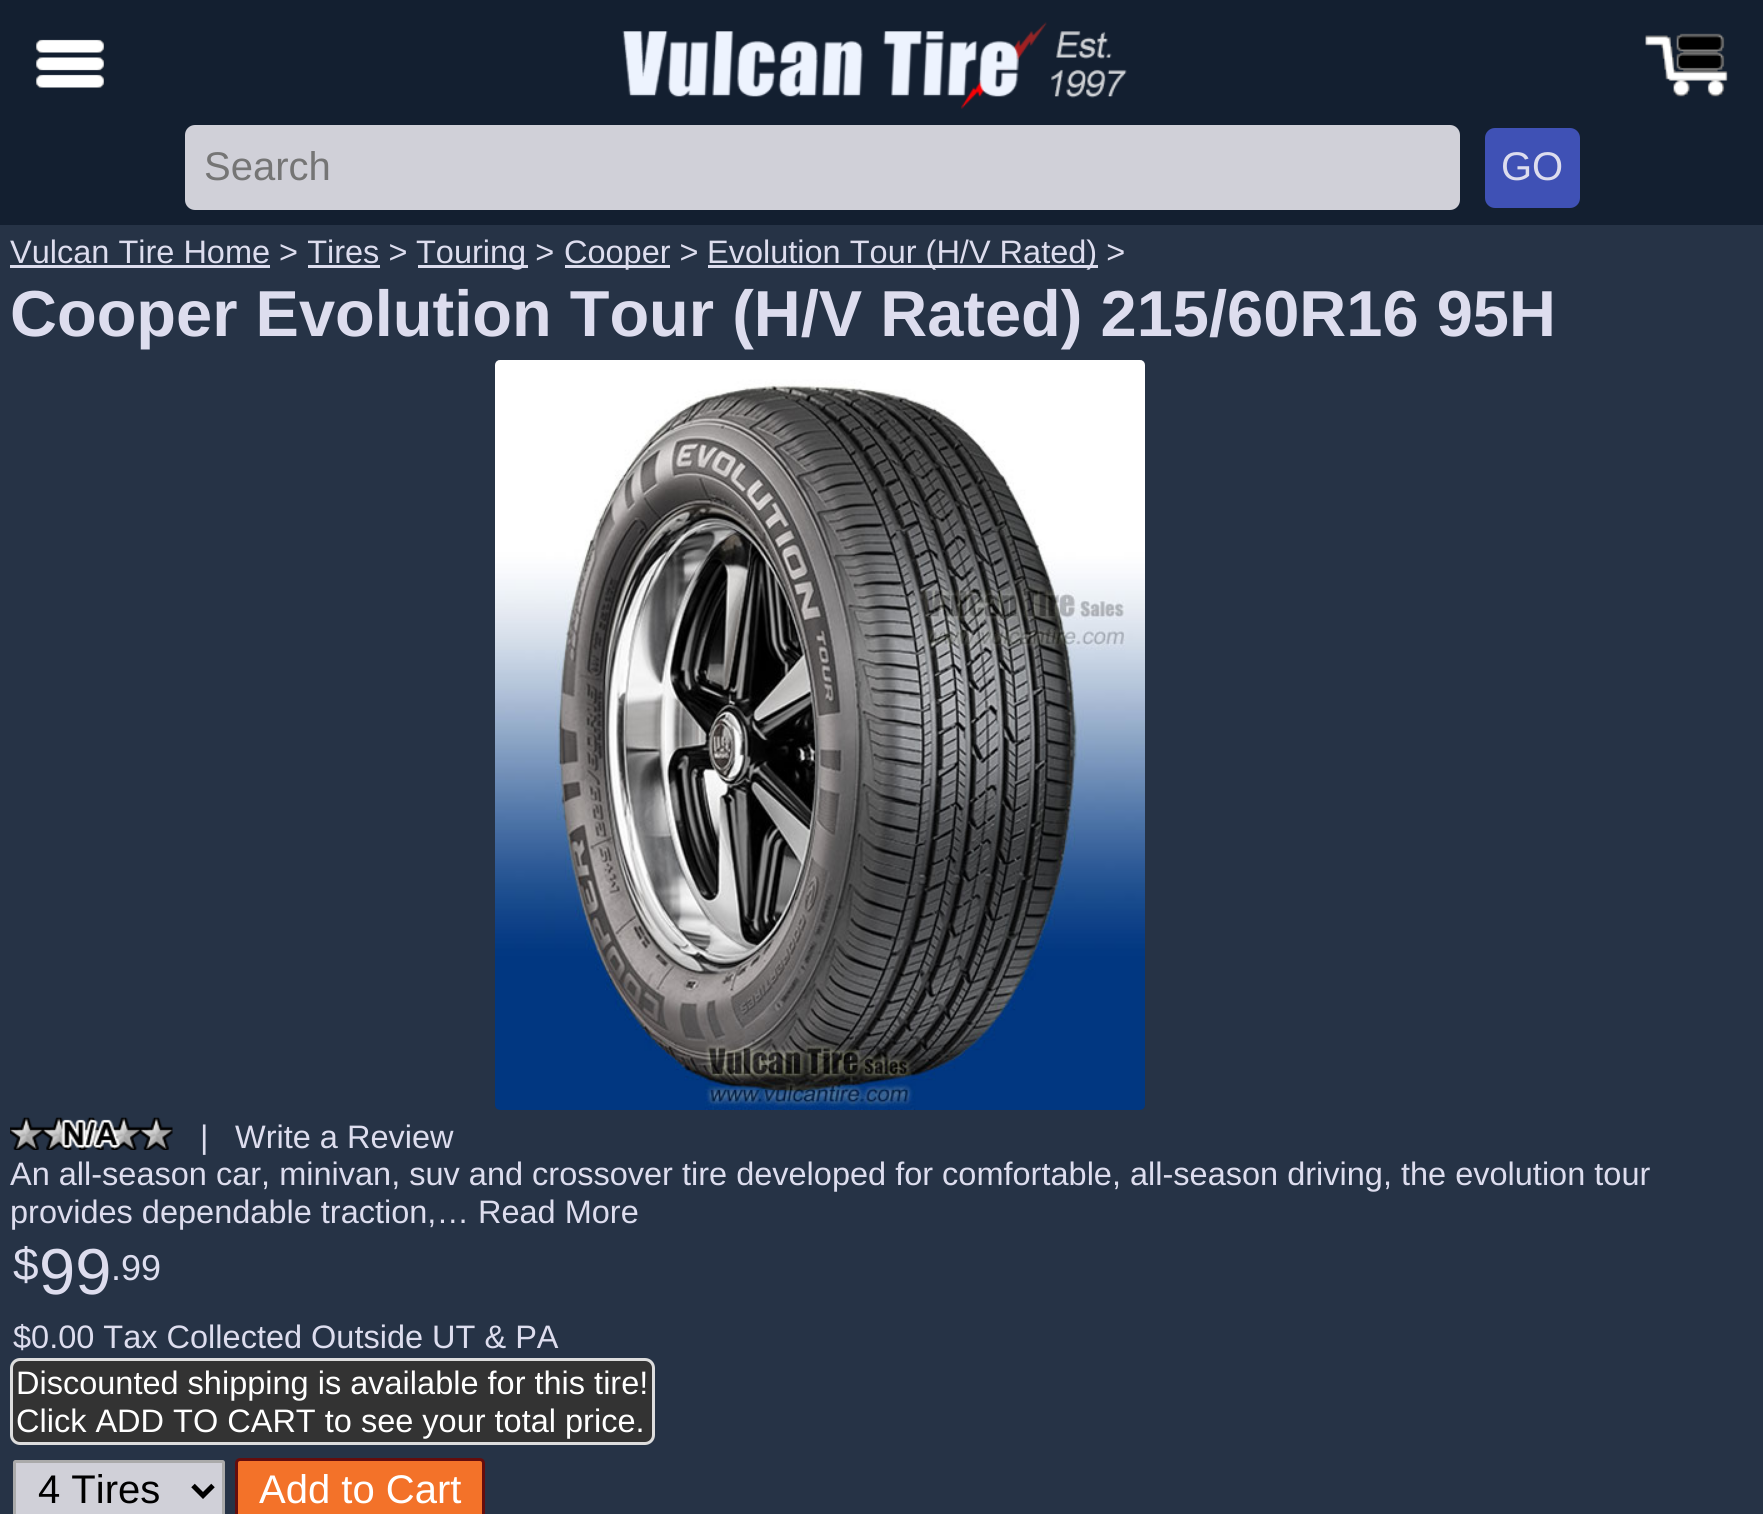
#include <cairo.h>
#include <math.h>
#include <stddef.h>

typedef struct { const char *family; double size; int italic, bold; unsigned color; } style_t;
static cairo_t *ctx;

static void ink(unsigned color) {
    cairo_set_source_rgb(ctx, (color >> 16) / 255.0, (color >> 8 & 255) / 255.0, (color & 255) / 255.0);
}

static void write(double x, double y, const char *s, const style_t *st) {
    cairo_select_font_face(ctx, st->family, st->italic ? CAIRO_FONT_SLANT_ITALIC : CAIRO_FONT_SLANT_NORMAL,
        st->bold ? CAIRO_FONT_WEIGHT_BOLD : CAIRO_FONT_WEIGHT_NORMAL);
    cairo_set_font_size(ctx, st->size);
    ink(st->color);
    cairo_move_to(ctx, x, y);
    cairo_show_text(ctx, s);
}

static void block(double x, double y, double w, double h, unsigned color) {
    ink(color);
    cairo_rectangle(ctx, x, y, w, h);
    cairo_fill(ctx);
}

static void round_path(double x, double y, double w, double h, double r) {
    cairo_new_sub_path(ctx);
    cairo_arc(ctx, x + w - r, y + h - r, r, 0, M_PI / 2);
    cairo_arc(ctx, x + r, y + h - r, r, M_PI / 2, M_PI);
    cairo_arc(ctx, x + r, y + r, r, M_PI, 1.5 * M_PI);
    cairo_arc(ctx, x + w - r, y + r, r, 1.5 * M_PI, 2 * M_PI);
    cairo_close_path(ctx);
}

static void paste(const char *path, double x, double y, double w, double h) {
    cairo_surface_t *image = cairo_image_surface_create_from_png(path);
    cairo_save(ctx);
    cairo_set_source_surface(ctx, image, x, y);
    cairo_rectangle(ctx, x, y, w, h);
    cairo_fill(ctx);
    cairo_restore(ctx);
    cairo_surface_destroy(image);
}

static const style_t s1 = {"Liberation Sans", 40, 0, 0, 0x757575};
static const style_t s2 = {"Liberation Sans", 40, 0, 0, 0xddddee};
static const style_t s3 = {"Liberation Sans", 32.5, 0, 0, 0xddddee};
static const style_t s4 = {"Liberation Sans", 65, 0, 1, 0xddddee};
static const style_t s5 = {"Liberation Sans", 46, 0, 0, 0xddddee};
static const style_t s6 = {"Liberation Sans", 65, 0, 0, 0xddddee};
static const style_t s7 = {"Liberation Sans", 36, 0, 0, 0xddddee};
static const style_t s8 = {"Liberation Sans", 32.5, 0, 0, 0xffffff};
static const style_t s9 = {"Liberation Sans", 40, 0, 0, 0x000000};
static const style_t s10 = {"Liberation Sans", 40, 0, 0, 0xffffff};

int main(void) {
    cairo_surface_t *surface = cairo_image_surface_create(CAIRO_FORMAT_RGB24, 1763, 1514);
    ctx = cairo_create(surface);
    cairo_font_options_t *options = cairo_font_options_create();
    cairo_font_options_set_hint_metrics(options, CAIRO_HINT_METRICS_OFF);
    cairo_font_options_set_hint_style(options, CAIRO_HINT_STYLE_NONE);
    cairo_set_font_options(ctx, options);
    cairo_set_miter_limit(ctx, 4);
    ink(0x263346);
    cairo_paint(ctx);
    block(0, 0, 1763, 225, 0x131f30);
    paste("pic1.png", 36, 39, 68, 49);
    paste("pic2.png", 622, 22, 505, 87);
    paste("pic3.png", 1645, 33, 83, 64);
    ink(0xd0d0d8);
    round_path(185, 125, 1275, 85, 10);
    cairo_fill(ctx);
    write(204, 180, "Search", &s1);
    ink(0x3f51b5);
    round_path(1485, 128, 95, 80, 10);
    cairo_fill(ctx);
    write(1501, 180, "GO", &s2);
    write(10, 263, "Vulcan Tire Home > Tires >", &s3);
    block(10, 265, 260, 3, 0xddddee);
    block(418, 265, 110, 3, 0xddddee);
    write(416, 263, "Touring >", &s3);
    block(565, 265, 105, 3, 0xddddee);
    write(564, 263, "Cooper >", &s3);
    block(708, 265, 390, 3, 0xddddee);
    write(707, 263, "Evolution Tour (H/V Rated) >", &s3);
    block(308, 265, 72, 3, 0xddddee);
    write(10, 336, "Cooper Evolution Tour (H/V Rated) 215/60R16 95H", &s4);
    paste("pic4.png", 495, 360, 650, 750);
    paste("pic5.png", 10, 1117, 163, 33);
    write(200, 1148, "|", &s3);
    write(235, 1148, "Write a Review", &s3);
    write(10, 1185, "An all-season car, minivan, suv and crossover tire developed for comfortable, all-season driving, the evolution tour", &s3);
    write(10, 1223, "provides dependable traction,… Read More", &s3);
    write(13, 1280, "$", &s5);
    write(39, 1294, "99", &s6);
    write(111, 1280, ".99", &s7);
    write(13, 1348, "$0.00 Tax Collected Outside UT & PA", &s3);
    ink(0x333333);
    round_path(11.5, 1359.5, 642, 84, 8.5);
    cairo_fill_preserve(ctx);
    ink(0xdddddd);
    cairo_set_line_width(ctx, 3);
    cairo_stroke(ctx);
    write(16, 1394, "Discounted shipping is available for this tire!", &s8);
    write(16, 1432, "Click ADD TO CART to see your total price.", &s8);
    ink(0xd0d0d8);
    round_path(14.5, 1461.5, 209, 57, 1);
    cairo_fill_preserve(ctx);
    ink(0xaaaaaa);
    cairo_stroke(ctx);
    cairo_new_path(ctx);
    cairo_move_to(ctx, 193, 1485.5);
    cairo_line_to(ctx, 203, 1495.5);
    cairo_line_to(ctx, 213, 1485.5);
    ink(0x000000);
    cairo_set_line_width(ctx, 5);
    cairo_stroke(ctx);
    write(38, 1503, "4 Tires", &s9);
    ink(0xf37229);
    round_path(236.5, 1459.5, 247, 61, 3.5);
    cairo_fill_preserve(ctx);
    ink(0x640d0d);
    cairo_set_line_width(ctx, 3);
    cairo_stroke(ctx);
    write(259, 1503, "Add to Cart", &s10);
    cairo_surface_write_to_png(surface, "screenshot.png");
    cairo_font_options_destroy(options);
    cairo_destroy(ctx);
    cairo_surface_destroy(surface);
    return 0;
}
